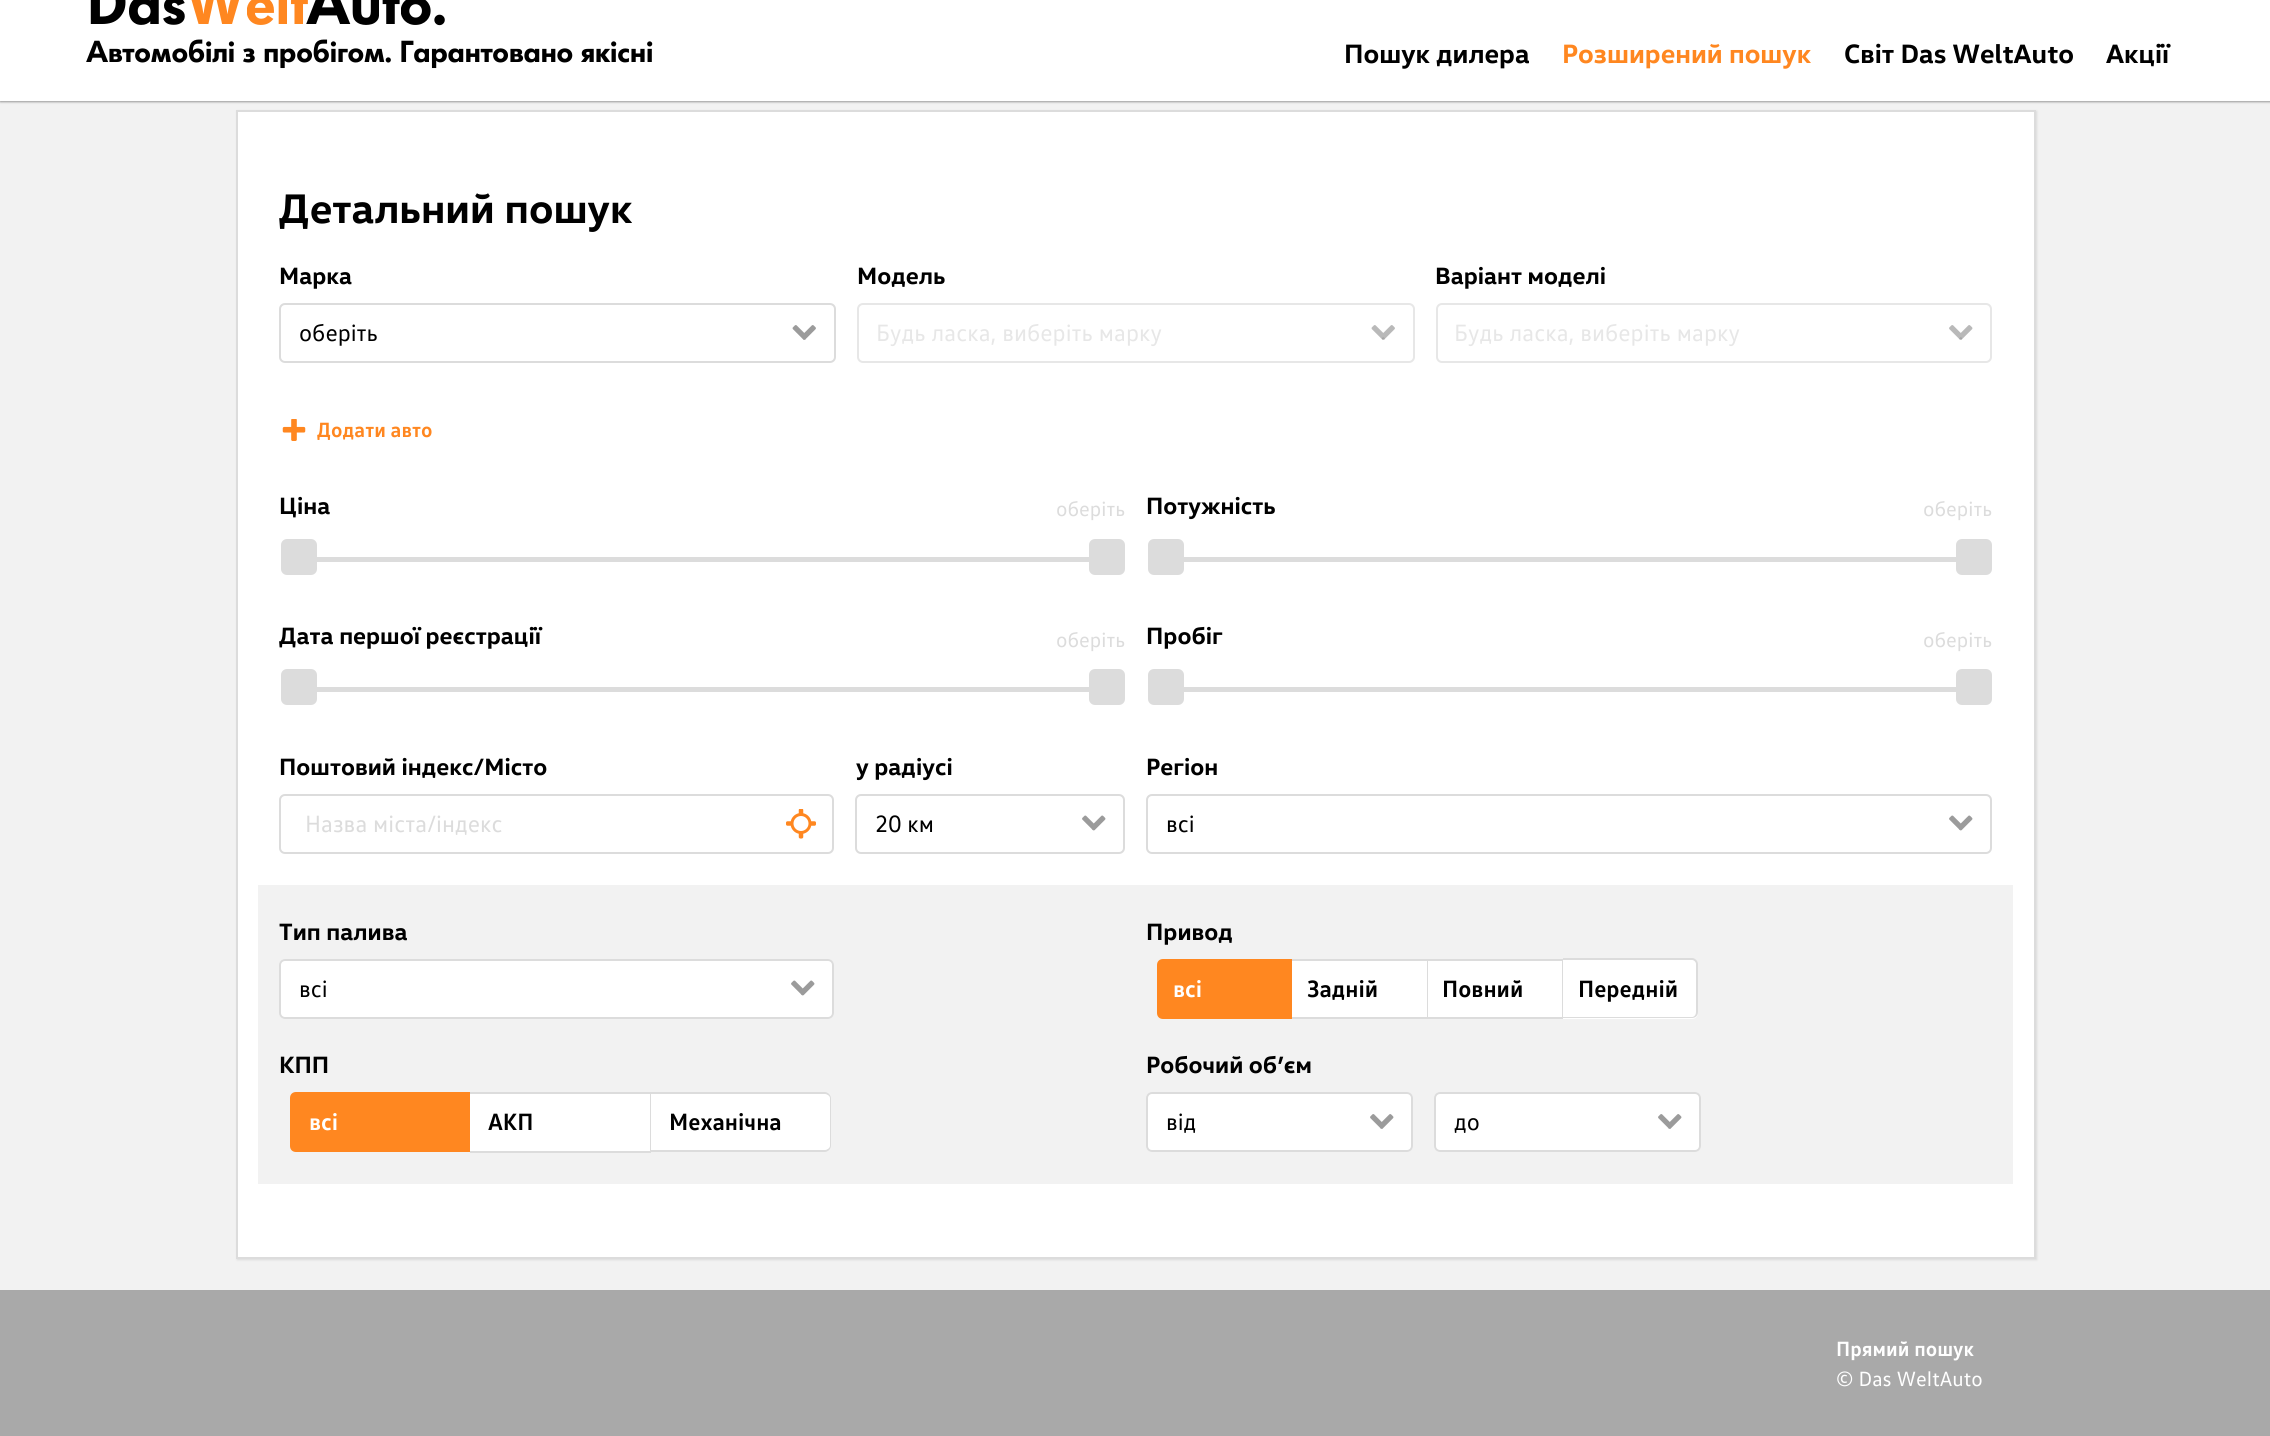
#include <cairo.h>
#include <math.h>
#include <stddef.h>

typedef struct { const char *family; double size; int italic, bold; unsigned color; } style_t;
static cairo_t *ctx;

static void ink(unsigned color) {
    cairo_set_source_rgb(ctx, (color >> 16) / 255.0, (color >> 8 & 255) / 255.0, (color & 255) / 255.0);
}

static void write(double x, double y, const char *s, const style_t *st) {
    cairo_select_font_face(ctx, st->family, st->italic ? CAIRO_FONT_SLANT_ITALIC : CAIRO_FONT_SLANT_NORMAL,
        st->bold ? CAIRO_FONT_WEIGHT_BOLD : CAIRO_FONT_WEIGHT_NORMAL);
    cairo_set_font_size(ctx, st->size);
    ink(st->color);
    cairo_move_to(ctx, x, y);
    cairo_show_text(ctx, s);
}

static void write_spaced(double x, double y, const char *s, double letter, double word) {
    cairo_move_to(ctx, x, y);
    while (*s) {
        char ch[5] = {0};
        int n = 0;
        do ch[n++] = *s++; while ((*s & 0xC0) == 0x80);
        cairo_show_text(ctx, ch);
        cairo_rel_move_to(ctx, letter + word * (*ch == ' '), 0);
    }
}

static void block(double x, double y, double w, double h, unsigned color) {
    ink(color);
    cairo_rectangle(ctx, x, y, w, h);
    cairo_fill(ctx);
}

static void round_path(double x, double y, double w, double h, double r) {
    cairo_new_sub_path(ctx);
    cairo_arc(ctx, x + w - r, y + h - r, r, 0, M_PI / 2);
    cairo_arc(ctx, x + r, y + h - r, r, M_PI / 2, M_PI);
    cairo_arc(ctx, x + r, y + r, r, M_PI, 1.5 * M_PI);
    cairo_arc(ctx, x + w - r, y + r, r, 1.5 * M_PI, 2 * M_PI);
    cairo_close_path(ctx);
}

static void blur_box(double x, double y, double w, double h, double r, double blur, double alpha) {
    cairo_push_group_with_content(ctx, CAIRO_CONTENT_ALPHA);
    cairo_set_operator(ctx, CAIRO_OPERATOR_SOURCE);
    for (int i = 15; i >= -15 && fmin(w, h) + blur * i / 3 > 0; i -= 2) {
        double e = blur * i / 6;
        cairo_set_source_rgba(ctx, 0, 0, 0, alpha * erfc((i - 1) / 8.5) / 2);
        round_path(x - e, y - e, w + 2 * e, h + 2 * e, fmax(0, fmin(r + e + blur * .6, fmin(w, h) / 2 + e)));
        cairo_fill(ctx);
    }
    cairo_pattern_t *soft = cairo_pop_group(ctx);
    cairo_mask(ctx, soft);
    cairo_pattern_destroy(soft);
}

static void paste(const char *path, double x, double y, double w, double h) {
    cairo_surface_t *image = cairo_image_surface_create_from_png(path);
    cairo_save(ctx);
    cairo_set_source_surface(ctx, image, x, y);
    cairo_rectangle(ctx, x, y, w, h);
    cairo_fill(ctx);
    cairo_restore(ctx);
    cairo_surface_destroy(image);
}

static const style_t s1 = {"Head", 27, 0, 1, 0x000000};
static const style_t s2 = {"Head", 27, 0, 1, 0xff8720};
static const style_t s3 = {"Head", 42, 0, 1, 0x000000};
static const style_t s4 = {"Head", 24, 0, 1, 0x000000};
static const style_t s5 = {"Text", 24, 0, 0, 0x000000};
static const style_t s6 = {"Text", 24, 0, 0, 0xe7e7e7};
static const style_t s7 = {"Text", 21, 0, 1, 0xff8720};
static const style_t s8 = {"Text", 21, 0, 0, 0xdcdcdc};
static const style_t s9 = {"Text", 24, 0, 0, 0xdcdcdc};
static const style_t s10 = {"Text", 24, 0, 1, 0xffffff};
static const style_t s11 = {"Text", 24, 0, 1, 0x000000};
static const style_t s12 = {"Text", 21, 0, 1, 0xffffff};
static const style_t s13 = {"Text", 21, 0, 0, 0xffffff};

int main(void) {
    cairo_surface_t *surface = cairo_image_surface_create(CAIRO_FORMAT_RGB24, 2270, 1436);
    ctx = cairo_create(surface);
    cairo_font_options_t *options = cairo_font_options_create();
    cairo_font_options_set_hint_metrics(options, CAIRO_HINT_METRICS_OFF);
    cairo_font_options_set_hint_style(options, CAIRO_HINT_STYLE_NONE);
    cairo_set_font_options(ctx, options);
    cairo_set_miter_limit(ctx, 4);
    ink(0xf2f2f2);
    cairo_paint(ctx);
    ink(0x9b9b9b);
    blur_box(0, -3, 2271, 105, 0, 1, 1);
    block(0, 0, 2270, 101, 0xffffff);
    cairo_select_font_face(ctx, "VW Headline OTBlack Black", CAIRO_FONT_SLANT_NORMAL, CAIRO_FONT_WEIGHT_NORMAL);
    cairo_set_font_size(ctx, 60);
    ink(0x000000);
    write_spaced(86, 24, "Das", -1, 0);
    ink(0xff8720);
    write_spaced(185, 24, "Welt", -1, 0);
    ink(0x000000);
    write_spaced(306, 24, "Auto.", -1, 0);
    cairo_set_font_size(ctx, 30);
    write_spaced(86, 62, "Автомобілі з пробігом. Гарантовано якісні", -0.6, 0);
    write(1344, 63, "Пошук дилера", &s1);
    write(1562, 63, "Розширений пошук", &s2);
    write(1844, 63, "Світ Das WeltAuto", &s1);
    write(2106, 63, "Акції", &s1);
    ink(0xdcdcdc);
    blur_box(237, 111, 1800, 1149, 0, 1, 1);
    ink(0xffffff);
    cairo_rectangle(ctx, 237, 111, 1798, 1147);
    cairo_fill_preserve(ctx);
    ink(0xdcdcdc);
    cairo_stroke(ctx);
    write(279, 223, "Детальний пошук", &s3);
    write(279, 284, "Марка", &s4);
    paste("pic1.png", 792, 325, 24, 15);
    round_path(280, 304, 555, 58, 5);
    ink(0xdcdcdc);
    cairo_stroke(ctx);
    write(299, 341, "оберіть", &s5);
    write(857, 284, "Модель", &s4);
    paste("pic2.png", 1371, 325, 24, 15);
    round_path(858, 304, 556, 58, 5);
    ink(0xe7e7e7);
    cairo_stroke(ctx);
    write(876, 341, "Будь ласка, виберіть марку", &s6);
    write(1435, 284, "Варіант моделі", &s4);
    paste("pic3.png", 1949, 325, 24, 15);
    round_path(1437, 304, 554, 58, 5);
    ink(0xe7e7e7);
    cairo_stroke(ctx);
    write(1454, 341, "Будь ласка, виберіть марку", &s6);
    paste("pic4.png", 282, 419, 24, 22);
    write(317, 437, "Додати авто", &s7);
    write(279, 514, "Ціна", &s4);
    write(1056, 516, "оберіть", &s8);
    block(317, 557, 772, 5, 0xdcdcdc);
    round_path(281, 539, 36, 36, 6);
    cairo_fill(ctx);
    round_path(1089, 539, 36, 36, 6);
    cairo_fill(ctx);
    write(1146, 514, "Потужність", &s4);
    write(1923, 516, "оберіть", &s8);
    block(1184, 557, 772, 5, 0xdcdcdc);
    round_path(1148, 539, 36, 36, 6);
    cairo_fill(ctx);
    round_path(1956, 539, 36, 36, 6);
    cairo_fill(ctx);
    write(279, 644, "Дата першої реєстрації", &s4);
    write(1056, 647, "оберіть", &s8);
    block(317, 687, 772, 5, 0xdcdcdc);
    round_path(281, 669, 36, 36, 6);
    cairo_fill(ctx);
    round_path(1089, 669, 36, 36, 6);
    cairo_fill(ctx);
    write(1146, 644, "Пробіг", &s4);
    write(1923, 647, "оберіть", &s8);
    block(1184, 687, 772, 5, 0xdcdcdc);
    round_path(1148, 669, 36, 36, 6);
    cairo_fill(ctx);
    round_path(1956, 669, 36, 36, 6);
    cairo_fill(ctx);
    write(279, 775, "Поштовий індекс/Місто", &s4);
    round_path(280, 795, 553, 58, 5);
    ink(0xdcdcdc);
    cairo_stroke(ctx);
    write(305, 832, "Назва міста/індекс", &s9);
    paste("pic5.png", 786, 809, 30, 30);
    write(856, 775, "у радіусі", &s4);
    paste("pic6.png", 1082, 815, 24, 16);
    round_path(856, 795, 268, 58, 5);
    ink(0xdcdcdc);
    cairo_stroke(ctx);
    write(875, 832, "20 км", &s5);
    write(1146, 775, "Регіон", &s4);
    paste("pic6.png", 1949, 815, 24, 16);
    round_path(1147, 795, 844, 58, 5);
    ink(0xdcdcdc);
    cairo_stroke(ctx);
    write(1166, 832, "всі", &s5);
    block(258, 885, 1755, 299, 0xf2f2f2);
    write(279, 940, "Тип палива", &s4);
    ink(0xffffff);
    round_path(279, 959, 555, 60, 6);
    cairo_fill(ctx);
    paste("pic6.png", 791, 980, 24, 16);
    round_path(280, 960, 553, 58, 5);
    ink(0xdcdcdc);
    cairo_stroke(ctx);
    write(299, 997, "всі", &s5);
    write(1146, 940, "Привод", &s4);
    ink(0xff8720);
    cairo_new_path(ctx);
    cairo_move_to(ctx, 1163, 960);
    cairo_line_to(ctx, 1291, 960);
    cairo_line_to(ctx, 1291, 1018);
    cairo_line_to(ctx, 1163, 1018);
    cairo_curve_to(ctx, 1160, 1018, 1158, 1016, 1158, 1013);
    cairo_line_to(ctx, 1158, 965);
    cairo_curve_to(ctx, 1158, 962, 1160, 960, 1163, 960);
    cairo_close_path(ctx);
    cairo_fill_preserve(ctx);
    cairo_stroke(ctx);
    write(1173, 997, "всі", &s10);
    block(1292, 961, 135, 56, 0xffffff);
    block(1292, 959, 271, 2, 0xdcdcdc);
    block(1427, 959, 1, 60, 0xdcdcdc);
    block(1292, 1017, 136, 2, 0xdcdcdc);
    write(1307, 997, "Задній", &s11);
    block(1428, 961, 134, 56, 0xffffff);
    block(1562, 959, 1, 60, 0xdcdcdc);
    block(1428, 1017, 135, 2, 0xdcdcdc);
    write(1442, 997, "Повний", &s11);
    ink(0xffffff);
    cairo_new_path(ctx);
    cairo_move_to(ctx, 1563, 959);
    cairo_line_to(ctx, 1692, 959);
    cairo_curve_to(ctx, 1695.5, 959, 1698, 961.5, 1698, 965);
    cairo_line_to(ctx, 1698, 1013);
    cairo_curve_to(ctx, 1698, 1016.5, 1695.5, 1019, 1692, 1019);
    cairo_line_to(ctx, 1563, 1019);
    cairo_close_path(ctx);
    cairo_fill(ctx);
    ink(0xdcdcdc);
    cairo_set_fill_rule(ctx, CAIRO_FILL_RULE_EVEN_ODD);
    cairo_new_path(ctx);
    cairo_move_to(ctx, 1563, 958);
    cairo_line_to(ctx, 1692, 958);
    cairo_curve_to(ctx, 1695, 958, 1698, 961, 1698, 964);
    cairo_line_to(ctx, 1698, 1012);
    cairo_curve_to(ctx, 1698, 1016, 1695, 1018, 1692, 1018);
    cairo_line_to(ctx, 1563, 1018);
    cairo_close_path(ctx);
    cairo_move_to(ctx, 1563, 960);
    cairo_line_to(ctx, 1692, 960);
    cairo_curve_to(ctx, 1694, 960, 1696, 962, 1696, 964);
    cairo_line_to(ctx, 1696, 1012);
    cairo_curve_to(ctx, 1696, 1015, 1694, 1017, 1692, 1017);
    cairo_line_to(ctx, 1563, 1017);
    cairo_close_path(ctx);
    cairo_fill(ctx);
    write(1578, 997, "Передній", &s11);
    write(279, 1073, "КПП", &s4);
    ink(0xff8720);
    cairo_new_path(ctx);
    cairo_move_to(ctx, 296, 1093);
    cairo_line_to(ctx, 469, 1093);
    cairo_line_to(ctx, 469, 1151);
    cairo_line_to(ctx, 296, 1151);
    cairo_curve_to(ctx, 293, 1151, 291, 1149, 291, 1146);
    cairo_line_to(ctx, 291, 1098);
    cairo_curve_to(ctx, 291, 1095, 293, 1093, 296, 1093);
    cairo_close_path(ctx);
    cairo_fill_preserve(ctx);
    cairo_stroke(ctx);
    write(309, 1130, "всі", &s10);
    block(470, 1094, 180, 57, 0xffffff);
    block(470, 1092, 181, 2, 0xdcdcdc);
    block(650, 1092, 1, 60, 0xdcdcdc);
    block(470, 1151, 181, 2, 0xdcdcdc);
    write(488, 1130, "АКП", &s11);
    ink(0xffffff);
    cairo_new_path(ctx);
    cairo_move_to(ctx, 651, 1092);
    cairo_line_to(ctx, 825, 1092);
    cairo_curve_to(ctx, 828.5, 1092, 831, 1094.5, 831, 1098);
    cairo_line_to(ctx, 831, 1146);
    cairo_curve_to(ctx, 831, 1149.5, 828.5, 1152, 825, 1152);
    cairo_line_to(ctx, 651, 1152);
    cairo_close_path(ctx);
    cairo_fill(ctx);
    ink(0xdcdcdc);
    cairo_new_path(ctx);
    cairo_move_to(ctx, 651, 1092);
    cairo_line_to(ctx, 825, 1092);
    cairo_curve_to(ctx, 828, 1092, 831, 1095, 831, 1098);
    cairo_line_to(ctx, 831, 1146);
    cairo_curve_to(ctx, 831, 1149, 828, 1152, 825, 1152);
    cairo_line_to(ctx, 651, 1152);
    cairo_close_path(ctx);
    cairo_move_to(ctx, 651, 1094);
    cairo_line_to(ctx, 825, 1094);
    cairo_curve_to(ctx, 827, 1094, 830, 1096, 830, 1098);
    cairo_line_to(ctx, 830, 1146);
    cairo_curve_to(ctx, 830, 1148, 827, 1150, 825, 1150);
    cairo_line_to(ctx, 651, 1150);
    cairo_close_path(ctx);
    cairo_fill(ctx);
    write(669, 1130, "Механічна", &s11);
    write(1146, 1073, "Робочий об’єм", &s4);
    ink(0xffffff);
    round_path(1146, 1092, 267, 60, 6);
    cairo_fill(ctx);
    paste("pic7.png", 1370, 1114, 24, 15);
    round_path(1147, 1093, 265, 58, 5);
    ink(0xdcdcdc);
    cairo_stroke(ctx);
    write(1166, 1130, "від", &s5);
    ink(0xffffff);
    round_path(1434, 1092, 267, 60, 6);
    cairo_fill(ctx);
    paste("pic7.png", 1658, 1114, 24, 15);
    round_path(1435, 1093, 265, 58, 5);
    ink(0xdcdcdc);
    cairo_stroke(ctx);
    write(1454, 1130, "до", &s5);
    block(0, 1290, 2270, 146, 0xa9a9a9);
    write(1836, 1356, "Прямий пошук", &s12);
    write(1836, 1386, "© Das WeltAuto", &s13);
    cairo_surface_write_to_png(surface, "screenshot.png");
    cairo_font_options_destroy(options);
    cairo_destroy(ctx);
    cairo_surface_destroy(surface);
    return 0;
}
